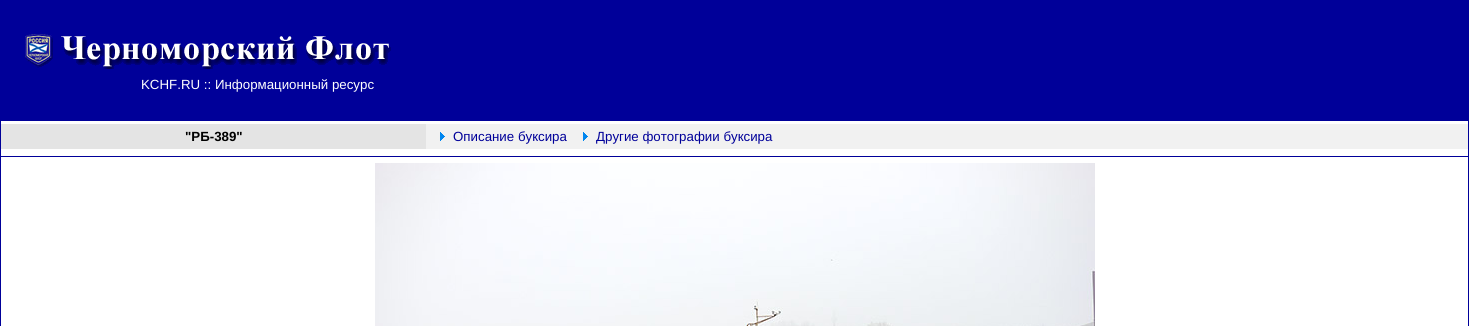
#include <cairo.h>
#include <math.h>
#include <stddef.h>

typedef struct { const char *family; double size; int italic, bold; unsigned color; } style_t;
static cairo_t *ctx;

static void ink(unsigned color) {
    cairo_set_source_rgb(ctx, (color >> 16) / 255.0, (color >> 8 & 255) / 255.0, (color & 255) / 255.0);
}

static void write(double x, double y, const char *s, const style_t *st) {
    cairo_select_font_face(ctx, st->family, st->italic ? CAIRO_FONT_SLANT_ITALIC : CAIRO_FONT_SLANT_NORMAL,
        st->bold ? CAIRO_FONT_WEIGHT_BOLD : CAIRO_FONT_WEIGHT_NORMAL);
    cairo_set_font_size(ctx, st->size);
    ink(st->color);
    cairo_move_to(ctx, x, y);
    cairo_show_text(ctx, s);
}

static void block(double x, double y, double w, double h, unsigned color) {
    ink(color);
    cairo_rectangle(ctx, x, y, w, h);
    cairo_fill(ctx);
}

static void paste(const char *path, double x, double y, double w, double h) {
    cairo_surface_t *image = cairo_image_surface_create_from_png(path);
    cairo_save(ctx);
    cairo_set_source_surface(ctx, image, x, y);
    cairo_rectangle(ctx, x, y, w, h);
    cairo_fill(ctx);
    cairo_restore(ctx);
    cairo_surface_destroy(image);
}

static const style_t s1 = {"Liberation Sans", 13.3, 0, 0, 0xffffff};
static const style_t s2 = {"Liberation Sans", 13.3, 0, 1, 0x000000};
static const style_t s3 = {"Liberation Sans", 13.3, 0, 0, 0x000099};

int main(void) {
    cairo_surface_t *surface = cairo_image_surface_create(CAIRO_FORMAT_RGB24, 1469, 326);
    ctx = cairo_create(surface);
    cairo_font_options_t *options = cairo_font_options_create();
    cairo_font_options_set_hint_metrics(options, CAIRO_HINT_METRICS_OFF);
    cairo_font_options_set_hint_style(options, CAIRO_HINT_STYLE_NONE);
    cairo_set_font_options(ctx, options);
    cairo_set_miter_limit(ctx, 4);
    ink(0x000099);
    cairo_paint(ctx);
    block(1, 121, 1467, 205, 0xffffff);
    paste("pic1.png", 25, 34, 366, 35);
    write(141, 89, "KCHF.RU :: Информационный ресурс", &s1);
    block(1, 124, 425, 25, 0xe4e4e4);
    write(185, 141, "\"РБ-389\"", &s2);
    block(426, 124, 1042, 25, 0xf1f1f1);
    paste("pic2.png", 440, 132, 5, 9);
    write(453, 141, "Описание буксира", &s3);
    paste("pic2.png", 583, 132, 5, 9);
    write(596, 141, "Другие фотографии буксира", &s3);
    block(1, 156, 1467, 1, 0x000099);
    paste("pic3.png", 375, 163, 720, 163);
    cairo_surface_write_to_png(surface, "screenshot.png");
    cairo_font_options_destroy(options);
    cairo_destroy(ctx);
    cairo_surface_destroy(surface);
    return 0;
}
